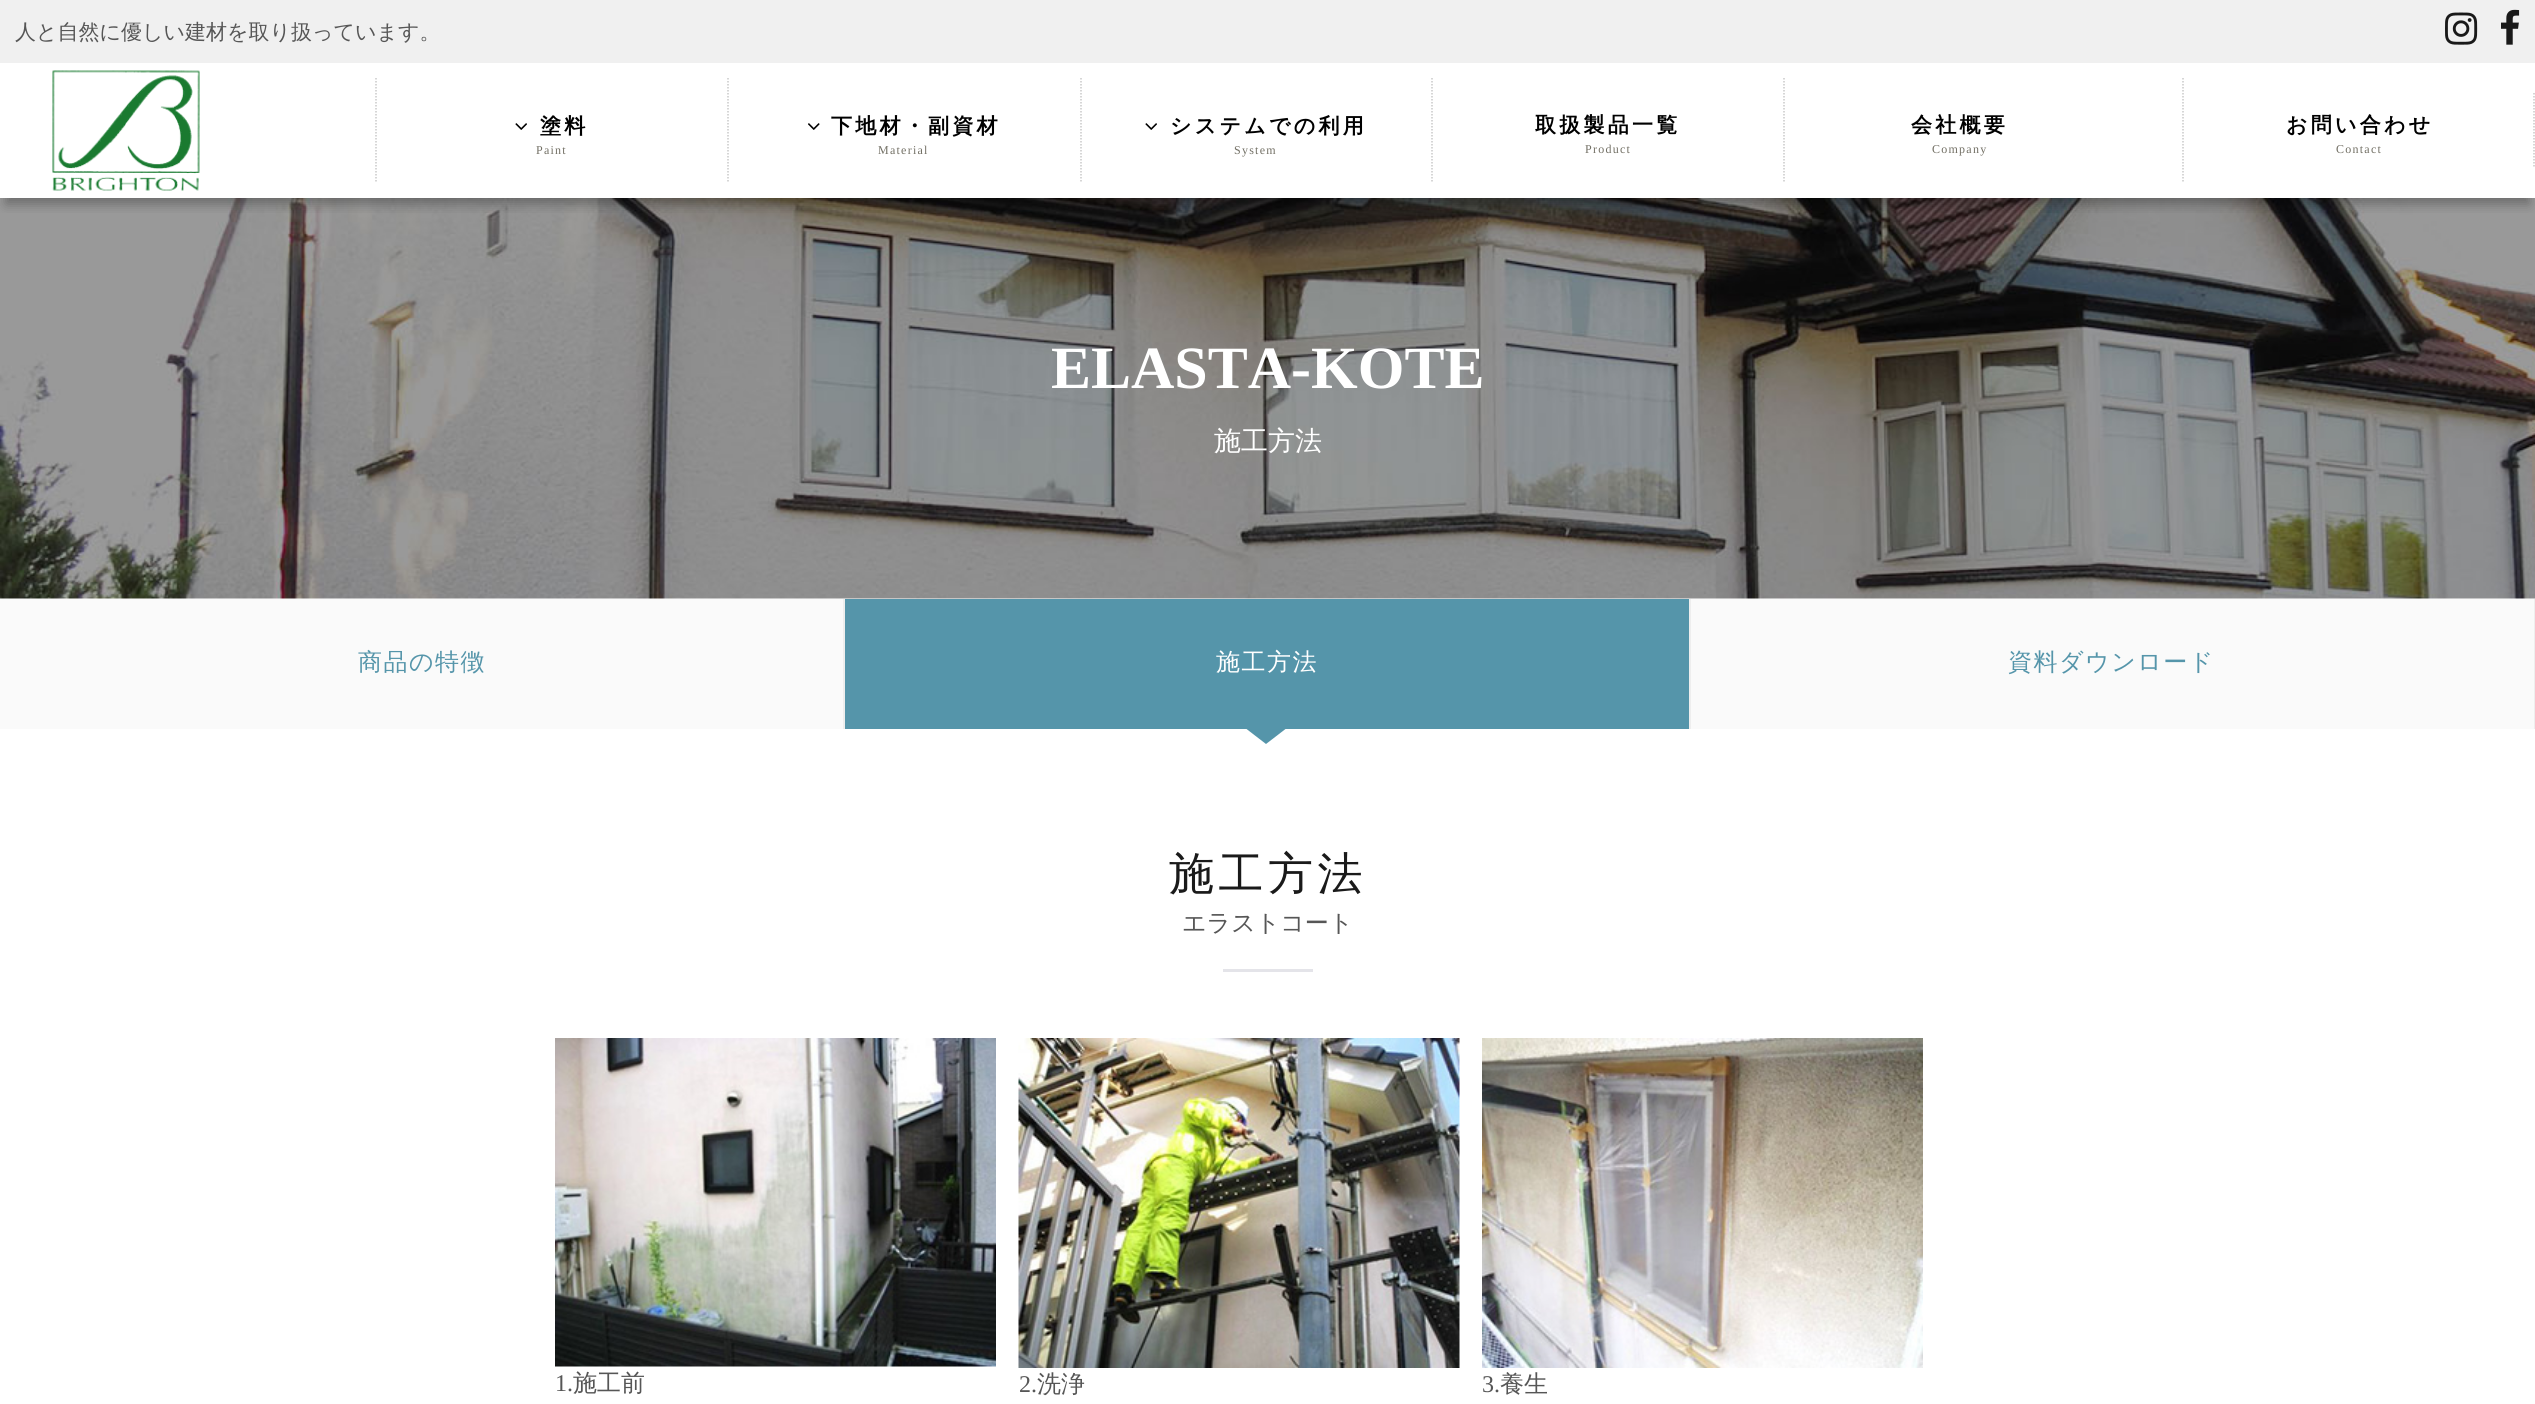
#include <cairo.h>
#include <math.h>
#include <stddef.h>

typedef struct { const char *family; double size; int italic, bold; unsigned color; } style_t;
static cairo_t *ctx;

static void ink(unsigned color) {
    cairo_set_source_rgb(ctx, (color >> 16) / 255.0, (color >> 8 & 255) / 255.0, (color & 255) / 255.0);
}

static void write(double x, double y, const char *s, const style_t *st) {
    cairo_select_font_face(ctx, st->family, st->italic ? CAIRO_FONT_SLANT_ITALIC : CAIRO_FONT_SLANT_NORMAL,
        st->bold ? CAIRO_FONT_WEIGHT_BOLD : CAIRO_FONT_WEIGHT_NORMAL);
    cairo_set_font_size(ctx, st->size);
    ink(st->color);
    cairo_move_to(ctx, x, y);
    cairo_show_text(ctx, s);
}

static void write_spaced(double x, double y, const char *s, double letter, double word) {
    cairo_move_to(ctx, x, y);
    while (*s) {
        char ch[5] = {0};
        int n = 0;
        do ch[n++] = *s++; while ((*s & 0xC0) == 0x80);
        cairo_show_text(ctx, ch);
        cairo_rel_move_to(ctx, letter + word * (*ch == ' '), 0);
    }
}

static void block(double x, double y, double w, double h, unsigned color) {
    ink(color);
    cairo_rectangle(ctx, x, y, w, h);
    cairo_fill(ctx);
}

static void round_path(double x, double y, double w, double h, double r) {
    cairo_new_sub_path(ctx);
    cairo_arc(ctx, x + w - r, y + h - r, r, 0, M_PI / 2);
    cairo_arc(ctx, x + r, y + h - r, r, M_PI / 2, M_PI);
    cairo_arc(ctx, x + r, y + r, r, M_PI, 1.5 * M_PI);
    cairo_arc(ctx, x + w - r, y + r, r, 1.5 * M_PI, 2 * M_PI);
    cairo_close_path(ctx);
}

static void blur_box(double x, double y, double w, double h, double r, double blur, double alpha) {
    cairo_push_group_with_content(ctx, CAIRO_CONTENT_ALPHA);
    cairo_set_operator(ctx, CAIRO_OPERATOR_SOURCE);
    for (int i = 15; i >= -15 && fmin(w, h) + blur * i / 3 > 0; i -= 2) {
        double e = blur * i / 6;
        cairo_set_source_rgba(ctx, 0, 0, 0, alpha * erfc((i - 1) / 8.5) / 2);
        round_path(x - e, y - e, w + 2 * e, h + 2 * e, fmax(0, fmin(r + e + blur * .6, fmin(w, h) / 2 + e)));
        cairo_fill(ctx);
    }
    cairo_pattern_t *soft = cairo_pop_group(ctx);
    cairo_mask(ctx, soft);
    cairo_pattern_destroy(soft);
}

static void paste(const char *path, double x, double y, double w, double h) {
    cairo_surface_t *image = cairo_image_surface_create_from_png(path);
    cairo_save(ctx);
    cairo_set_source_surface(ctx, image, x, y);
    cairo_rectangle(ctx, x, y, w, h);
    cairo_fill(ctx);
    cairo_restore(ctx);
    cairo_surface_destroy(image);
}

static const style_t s1 = {"WenQuanYi Zen Hei Medium", 21, 0, 0, 0x565656};
static const style_t s2 = {"Liberation Serif", 60, 0, 1, 0xffffff};
static const style_t s3 = {"WenQuanYi Zen Hei Medium", 27, 0, 0, 0xffffff};
static const style_t s4 = {"WenQuanYi Zen Hei Medium", 24, 0, 0, 0x565656};
static const style_t s5 = {"Liberation Serif", 24, 0, 0, 0x565656};

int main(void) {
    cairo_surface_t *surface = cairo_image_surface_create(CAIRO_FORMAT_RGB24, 2535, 1404);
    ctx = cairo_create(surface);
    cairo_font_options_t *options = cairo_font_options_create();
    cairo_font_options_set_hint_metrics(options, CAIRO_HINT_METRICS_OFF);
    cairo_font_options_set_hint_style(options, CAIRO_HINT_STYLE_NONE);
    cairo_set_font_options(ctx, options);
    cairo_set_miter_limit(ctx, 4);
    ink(0xffffff);
    cairo_paint(ctx);
    block(0, 0, 2535, 63, 0xf0f0f0);
    write(15, 39, "人と自然に優しい建材を取り扱っています。", &s1);
    paste("pic1.png", 2445, 12, 33, 33);
    paste("pic2.png", 2501, 9, 19, 36);
    paste("pic6.png", 0, 198, 2535, 401);
    cairo_save(ctx);
    cairo_rectangle(ctx, 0, 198, 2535, 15);
    cairo_clip(ctx);
    ink(0x000000);
    blur_box(6, 81, 2523, 123, 0, 6, 0.3);
    cairo_restore(ctx);
    paste("pic3.png", 52, 70, 148, 121);
    cairo_new_path(ctx);
    cairo_move_to(ctx, 376, 78);
    cairo_line_to(ctx, 376, 183);
    ink(0xc8c8c8);
    cairo_set_line_width(ctx, 1.5);
    cairo_set_dash(ctx, (double[]){1.5, 1.5}, 2, 0);
    cairo_stroke(ctx);
    paste("pic4.png", 515, 123, 12, 7);
    cairo_select_font_face(ctx, "WenQuanYi Zen Hei", CAIRO_FONT_SLANT_NORMAL, CAIRO_FONT_WEIGHT_BOLD);
    ink(0x000000);
    write_spaced(540, 133, "塗料", 3.25, 0);
    cairo_select_font_face(ctx, "Liberation Serif", CAIRO_FONT_SLANT_NORMAL, CAIRO_FONT_WEIGHT_NORMAL);
    cairo_set_font_size(ctx, 12);
    ink(0x726f64);
    write_spaced(536, 154, "Paint", 1.25, 0);
    cairo_new_path(ctx);
    cairo_move_to(ctx, 728, 78);
    cairo_line_to(ctx, 728, 183);
    ink(0xc8c8c8);
    cairo_stroke(ctx);
    paste("pic5.png", 808, 123, 12, 7);
    cairo_select_font_face(ctx, "WenQuanYi Zen Hei", CAIRO_FONT_SLANT_NORMAL, CAIRO_FONT_WEIGHT_BOLD);
    cairo_set_font_size(ctx, 21);
    ink(0x000000);
    write_spaced(831, 133, "下地材・副資材", 3.25, 0);
    cairo_select_font_face(ctx, "Liberation Serif", CAIRO_FONT_SLANT_NORMAL, CAIRO_FONT_WEIGHT_NORMAL);
    cairo_set_font_size(ctx, 12);
    ink(0x726f64);
    write_spaced(878, 154, "Material", 1.25, 0);
    cairo_new_path(ctx);
    cairo_move_to(ctx, 1081, 78);
    cairo_line_to(ctx, 1081, 183);
    ink(0xc8c8c8);
    cairo_stroke(ctx);
    paste("pic4.png", 1145, 123, 12, 7);
    cairo_select_font_face(ctx, "WenQuanYi Zen Hei", CAIRO_FONT_SLANT_NORMAL, CAIRO_FONT_WEIGHT_BOLD);
    cairo_set_font_size(ctx, 21);
    ink(0x000000);
    write_spaced(1170, 133, "システムでの利用", 3.25, 0);
    cairo_select_font_face(ctx, "Liberation Serif", CAIRO_FONT_SLANT_NORMAL, CAIRO_FONT_WEIGHT_NORMAL);
    cairo_set_font_size(ctx, 12);
    ink(0x726f64);
    write_spaced(1234, 154, "System", 1.25, 0);
    cairo_new_path(ctx);
    cairo_move_to(ctx, 1432, 78);
    cairo_line_to(ctx, 1432, 183);
    ink(0xc8c8c8);
    cairo_stroke(ctx);
    cairo_select_font_face(ctx, "WenQuanYi Zen Hei", CAIRO_FONT_SLANT_NORMAL, CAIRO_FONT_WEIGHT_BOLD);
    cairo_set_font_size(ctx, 21);
    ink(0x000000);
    write_spaced(1535, 132, "取扱製品一覧", 3.25, 0);
    cairo_select_font_face(ctx, "Liberation Serif", CAIRO_FONT_SLANT_NORMAL, CAIRO_FONT_WEIGHT_NORMAL);
    cairo_set_font_size(ctx, 12);
    ink(0x726f64);
    write_spaced(1585, 153, "Product", 1.25, 0);
    cairo_new_path(ctx);
    cairo_move_to(ctx, 1784, 78);
    cairo_line_to(ctx, 1784, 183);
    ink(0xc8c8c8);
    cairo_stroke(ctx);
    cairo_select_font_face(ctx, "WenQuanYi Zen Hei", CAIRO_FONT_SLANT_NORMAL, CAIRO_FONT_WEIGHT_BOLD);
    cairo_set_font_size(ctx, 21);
    ink(0x000000);
    write_spaced(1911, 132, "会社概要", 3.25, 0);
    cairo_select_font_face(ctx, "Liberation Serif", CAIRO_FONT_SLANT_NORMAL, CAIRO_FONT_WEIGHT_NORMAL);
    cairo_set_font_size(ctx, 12);
    ink(0x726f64);
    write_spaced(1932, 153, "Company", 1.25, 0);
    cairo_new_path(ctx);
    cairo_move_to(ctx, 2183, 78);
    cairo_line_to(ctx, 2183, 183);
    ink(0xc8c8c8);
    cairo_stroke(ctx);
    cairo_select_font_face(ctx, "WenQuanYi Zen Hei", CAIRO_FONT_SLANT_NORMAL, CAIRO_FONT_WEIGHT_BOLD);
    cairo_set_font_size(ctx, 21);
    ink(0x000000);
    write_spaced(2286, 132, "お問い合わせ", 3.25, 0);
    cairo_select_font_face(ctx, "Liberation Serif", CAIRO_FONT_SLANT_NORMAL, CAIRO_FONT_WEIGHT_NORMAL);
    cairo_set_font_size(ctx, 12);
    ink(0x726f64);
    write_spaced(2336, 153, "Contact", 1.25, 0);
    cairo_new_path(ctx);
    cairo_move_to(ctx, 2534, 93);
    cairo_line_to(ctx, 2534, 168);
    ink(0xc8c8c8);
    cairo_stroke(ctx);
    write(1051, 388, "ELASTA-KOTE", &s2);
    write(1214, 450, "施工方法", &s3);
    block(0, 599, 2534, 130, 0xfafafa);
    block(843, 599, 2, 130, 0xeeeeee);
    cairo_set_font_size(ctx, 24);
    ink(0x5595aa);
    write_spaced(358, 670, "商品の特徴", 1.5, 0);
    block(845, 599, 844, 130, 0x5595aa);
    block(1689, 599, 2, 130, 0xeeeeee);
    ink(0xffffff);
    write_spaced(1216, 670, "施工方法", 1.5, 0);
    ink(0x5595aa);
    cairo_new_path(ctx);
    cairo_move_to(ctx, 1246.5, 729);
    cairo_line_to(ctx, 1285.5, 729);
    cairo_line_to(ctx, 1266, 744);
    cairo_close_path(ctx);
    cairo_fill(ctx);
    block(2534, 599, 1, 130, 0xeeeeee);
    ink(0x5595aa);
    write_spaced(2008, 670, "資料ダウンロード", 1.5, 0);
    cairo_set_font_size(ctx, 45);
    ink(0x1a1a1a);
    write_spaced(1169, 889, "施工方法", 4.5, 0);
    block(1223, 969, 90, 3, 0xe4e4e9);
    write(1182, 931, "エラストコート", &s4);
    paste("pic7.png", 555, 1038, 441, 329);
    write(555, 1391, "1.", &s5);
    write(573, 1391, "施工前", &s4);
    paste("pic8.png", 1018, 1038, 442, 330);
    write(1019, 1392, "2.", &s5);
    write(1037, 1392, "洗浄", &s4);
    paste("pic9.png", 1482, 1038, 441, 330);
    write(1482, 1392, "3.", &s5);
    write(1500, 1392, "養生", &s4);
    cairo_surface_write_to_png(surface, "screenshot.png");
    cairo_font_options_destroy(options);
    cairo_destroy(ctx);
    cairo_surface_destroy(surface);
    return 0;
}
